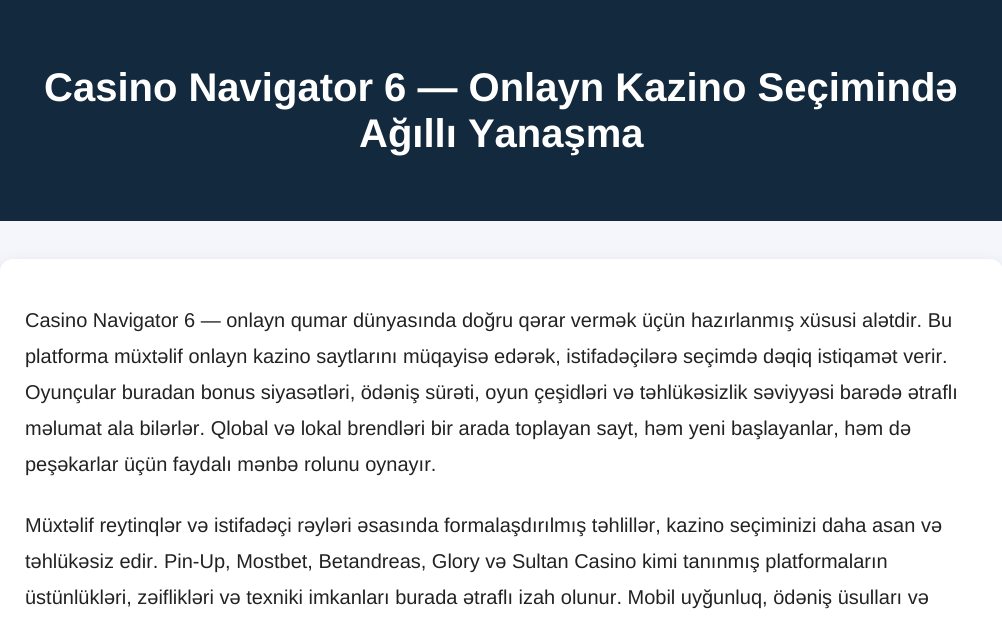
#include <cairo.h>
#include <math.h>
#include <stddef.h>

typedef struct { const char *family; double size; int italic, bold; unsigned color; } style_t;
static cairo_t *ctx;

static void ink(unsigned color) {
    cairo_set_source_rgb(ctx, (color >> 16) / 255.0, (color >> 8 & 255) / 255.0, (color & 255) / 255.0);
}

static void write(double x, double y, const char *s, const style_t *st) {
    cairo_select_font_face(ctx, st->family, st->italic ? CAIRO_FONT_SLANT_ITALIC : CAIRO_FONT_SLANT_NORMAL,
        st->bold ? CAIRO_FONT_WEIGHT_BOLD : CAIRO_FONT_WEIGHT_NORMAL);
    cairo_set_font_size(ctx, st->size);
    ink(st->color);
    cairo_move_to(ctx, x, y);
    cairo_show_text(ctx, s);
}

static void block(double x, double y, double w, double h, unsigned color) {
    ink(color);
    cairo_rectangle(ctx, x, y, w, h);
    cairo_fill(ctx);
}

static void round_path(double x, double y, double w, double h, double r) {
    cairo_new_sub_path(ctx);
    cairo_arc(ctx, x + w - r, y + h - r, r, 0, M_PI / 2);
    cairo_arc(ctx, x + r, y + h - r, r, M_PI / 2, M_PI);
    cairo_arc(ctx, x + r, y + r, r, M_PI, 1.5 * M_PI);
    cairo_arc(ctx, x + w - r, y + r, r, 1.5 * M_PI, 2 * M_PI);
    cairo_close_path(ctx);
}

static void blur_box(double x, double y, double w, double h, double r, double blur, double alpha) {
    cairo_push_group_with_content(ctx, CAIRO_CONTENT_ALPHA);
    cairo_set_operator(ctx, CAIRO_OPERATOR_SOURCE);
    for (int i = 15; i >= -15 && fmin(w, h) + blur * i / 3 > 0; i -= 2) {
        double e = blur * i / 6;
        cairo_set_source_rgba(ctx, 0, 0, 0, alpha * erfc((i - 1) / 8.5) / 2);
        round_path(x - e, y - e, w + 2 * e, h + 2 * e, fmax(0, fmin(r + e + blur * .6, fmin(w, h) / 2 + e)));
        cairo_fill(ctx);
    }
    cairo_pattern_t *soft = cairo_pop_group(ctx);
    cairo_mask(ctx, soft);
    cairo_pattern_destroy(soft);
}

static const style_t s1 = {"Liberation Sans", 40, 0, 1, 0xffffff};
static const style_t s2 = {"Liberation Sans", 20, 0, 0, 0x222222};

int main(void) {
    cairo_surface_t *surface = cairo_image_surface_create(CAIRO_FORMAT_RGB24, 1002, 617);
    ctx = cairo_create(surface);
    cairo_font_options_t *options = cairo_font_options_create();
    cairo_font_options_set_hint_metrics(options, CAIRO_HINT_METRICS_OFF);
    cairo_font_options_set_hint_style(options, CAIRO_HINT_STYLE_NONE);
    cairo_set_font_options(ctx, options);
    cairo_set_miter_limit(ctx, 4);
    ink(0xf4f6fb);
    cairo_paint(ctx);
    block(0, 0, 1002, 221, 0x13293d);
    write(44, 101, "Casino Navigator 6 — Onlayn Kazino Seçimində", &s1);
    write(359, 147, "Ağıllı Yanaşma", &s1);
    ink(0x000000);
    blur_box(0, 264, 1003, 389, 13, 7.5, 0.1);
    ink(0xffffff);
    round_path(0, 259, 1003, 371, 13);
    cairo_fill(ctx);
    write(25, 327, "Casino Navigator 6 — onlayn qumar dünyasında doğru qərar vermək üçün hazırlanmış xüsusi alətdir. Bu", &s2);
    write(25, 363, "platforma müxtəlif onlayn kazino saytlarını müqayisə edərək, istifadəçilərə seçimdə dəqiq istiqamət verir.", &s2);
    write(25, 399, "Oyunçular buradan bonus siyasətləri, ödəniş sürəti, oyun çeşidləri və təhlükəsizlik səviyyəsi barədə ətraflı", &s2);
    write(25, 435, "məlumat ala bilərlər. Qlobal və lokal brendləri bir arada toplayan sayt, həm yeni başlayanlar, həm də", &s2);
    write(25, 471, "peşəkarlar üçün faydalı mənbə rolunu oynayır.", &s2);
    write(25, 532, "Müxtəlif reytinqlər və istifadəçi rəyləri əsasında formalaşdırılmış təhlillər, kazino seçiminizi daha asan və", &s2);
    write(25, 568, "təhlükəsiz edir. Pin-Up, Mostbet, Betandreas, Glory və Sultan Casino kimi tanınmış platformaların", &s2);
    write(25, 604, "üstünlükləri, zəiflikləri və texniki imkanları burada ətraflı izah olunur. Mobil uyğunluq, ödəniş üsulları və", &s2);
    cairo_surface_write_to_png(surface, "screenshot.png");
    cairo_font_options_destroy(options);
    cairo_destroy(ctx);
    cairo_surface_destroy(surface);
    return 0;
}
